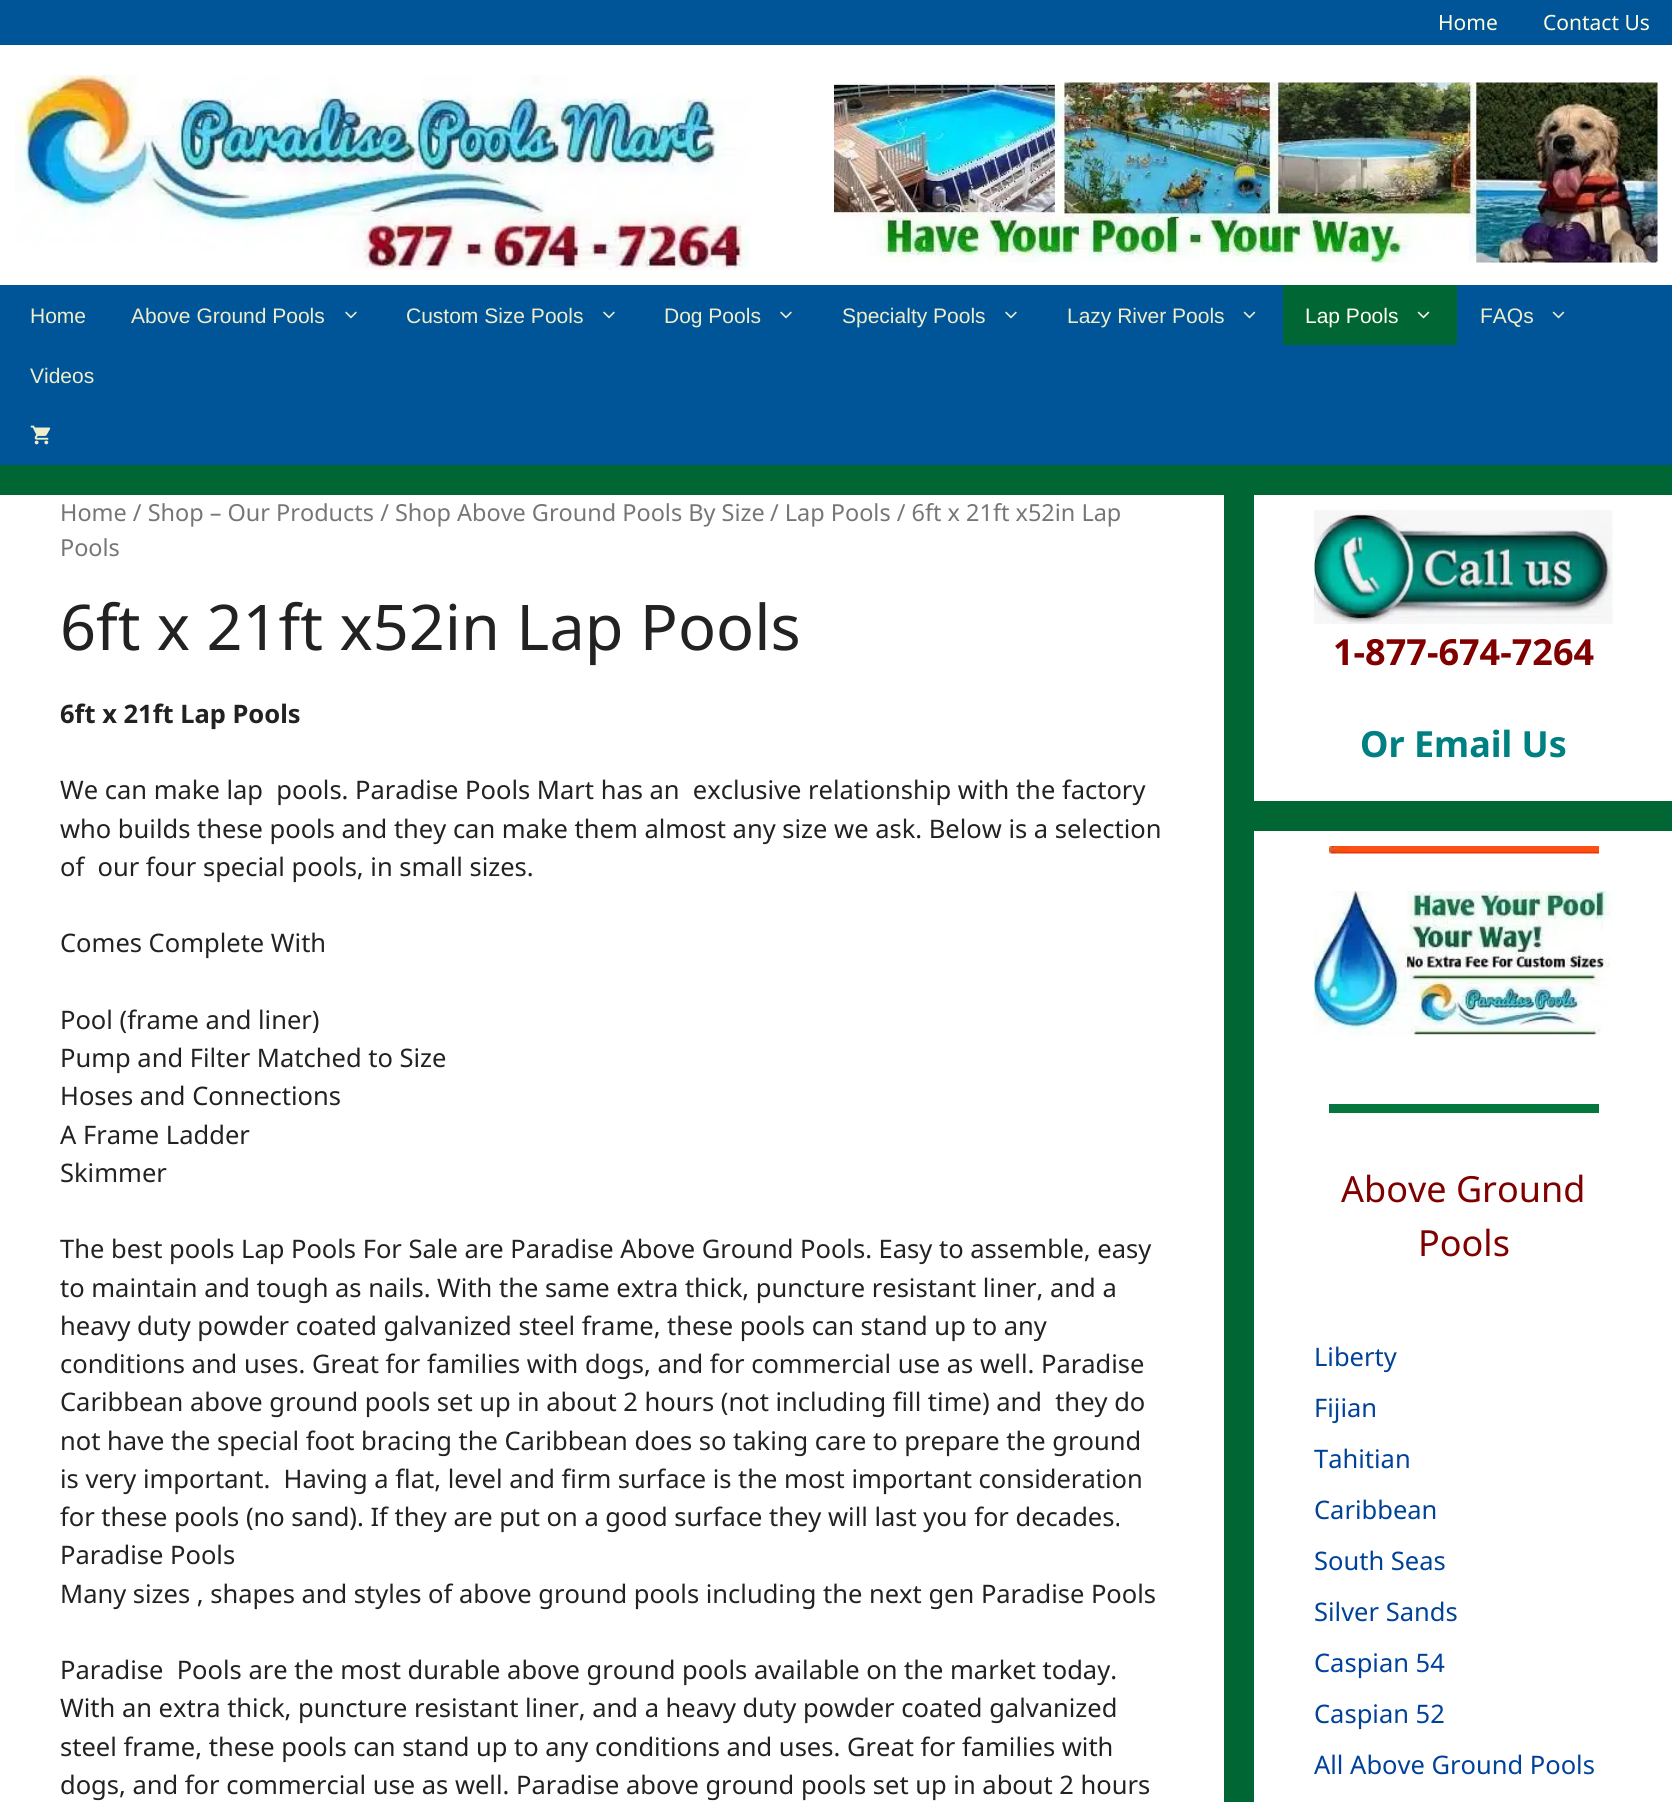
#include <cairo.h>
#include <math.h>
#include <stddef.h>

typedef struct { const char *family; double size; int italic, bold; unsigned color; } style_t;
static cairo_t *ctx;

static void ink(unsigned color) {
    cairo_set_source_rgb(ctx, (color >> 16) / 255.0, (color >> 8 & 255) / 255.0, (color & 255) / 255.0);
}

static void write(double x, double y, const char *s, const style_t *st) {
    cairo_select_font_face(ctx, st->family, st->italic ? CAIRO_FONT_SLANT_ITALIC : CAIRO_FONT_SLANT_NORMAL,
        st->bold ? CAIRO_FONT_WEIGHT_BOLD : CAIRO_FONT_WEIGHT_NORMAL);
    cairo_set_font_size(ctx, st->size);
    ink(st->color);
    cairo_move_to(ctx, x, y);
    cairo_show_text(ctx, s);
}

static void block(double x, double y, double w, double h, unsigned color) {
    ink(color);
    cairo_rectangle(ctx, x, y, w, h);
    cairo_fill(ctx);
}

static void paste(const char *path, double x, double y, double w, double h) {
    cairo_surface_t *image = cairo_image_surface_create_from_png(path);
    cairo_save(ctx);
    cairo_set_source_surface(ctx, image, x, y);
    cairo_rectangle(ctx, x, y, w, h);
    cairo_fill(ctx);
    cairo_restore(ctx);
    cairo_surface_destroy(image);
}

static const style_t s1 = {"Noto Sans", 21, 0, 0, 0xffffdd};
static const style_t s2 = {"Liberation Sans", 21, 0, 0, 0xeeeecc};
static const style_t s3 = {"Liberation Sans", 21, 0, 0, 0xffffee};
static const style_t s4 = {"Noto Sans", 23.45, 0, 0, 0x767676};
static const style_t s5 = {"Noto Sans", 63, 0, 0, 0x222222};
static const style_t s6 = {"Noto Sans", 25.5, 0, 1, 0x222222};
static const style_t s7 = {"Noto Sans", 25.5, 0, 0, 0x222222};
static const style_t s8 = {"Noto Sans", 36, 0, 1, 0x800000};
static const style_t s9 = {"Noto Sans", 36, 0, 1, 0x008080};
static const style_t s10 = {"Noto Sans", 36, 0, 0, 0x800000};
static const style_t s11 = {"Noto Sans", 25.5, 0, 0, 0x004299};

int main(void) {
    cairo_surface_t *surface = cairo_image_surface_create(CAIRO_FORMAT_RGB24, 1672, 1802);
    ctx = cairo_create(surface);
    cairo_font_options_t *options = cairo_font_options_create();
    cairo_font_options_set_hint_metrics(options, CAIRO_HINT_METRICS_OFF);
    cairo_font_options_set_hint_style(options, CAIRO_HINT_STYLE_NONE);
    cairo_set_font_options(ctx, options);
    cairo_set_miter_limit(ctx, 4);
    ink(0x006633);
    cairo_paint(ctx);
    block(0, 0, 1672, 45, 0x005599);
    write(1438, 30, "Home", &s1);
    write(1543, 30, "Contact Us", &s1);
    block(0, 45, 1672, 240, 0xffffff);
    paste("pic1.png", 15, 75, 735, 195);
    paste("pic2.png", 834, 82, 824, 181);
    block(0, 285, 1672, 180, 0x005599);
    write(30, 323, "Home", &s2);
    write(131, 323, "Above Ground Pools", &s2);
    paste("pic3.png", 345, 311, 12, 8);
    write(406, 323, "Custom Size Pools", &s2);
    paste("pic3.png", 603, 311, 12, 8);
    write(664, 323, "Dog Pools", &s2);
    paste("pic3.png", 780, 311, 12, 8);
    write(842, 323, "Specialty Pools", &s2);
    paste("pic3.png", 1005, 311, 12, 8);
    write(1067, 323, "Lazy River Pools", &s2);
    paste("pic4.png", 1243, 311, 13, 8);
    block(1283, 285, 174, 60, 0x006633);
    write(1305, 323, "Lap Pools", &s3);
    paste("pic5.png", 1417, 311, 13, 8);
    write(1480, 323, "FAQs", &s2);
    paste("pic4.png", 1552, 311, 13, 8);
    write(30, 383, "Videos", &s2);
    paste("pic6.png", 30, 425, 21, 20);
    block(0, 495, 1224, 1307, 0xffffff);
    write(60, 521, "Home / Shop – Our Products / Shop Above Ground Pools By Size", &s4);
    write(770, 521, "/ Lap Pools / 6ft x 21ft x52in Lap", &s4);
    write(60, 556, "Pools", &s4);
    write(60, 650, "6ft x 21ft x52in Lap Pools", &s5);
    write(60, 723, "6ft x 21ft Lap Pools", &s6);
    write(60, 799, "We can make lap  pools. Paradise Pools Mart has an  exclusive relationship with the factory", &s7);
    write(60, 838, "who builds these pools and they can make them almost any size we ask. Below is a selection", &s7);
    write(60, 876, "of  our four special pools, in small sizes.", &s7);
    write(60, 952, "Comes Complete With", &s7);
    write(60, 1029, "Pool (frame and liner)", &s7);
    write(60, 1067, "Pump and Filter Matched to Size", &s7);
    write(60, 1105, "Hoses and Connections", &s7);
    write(60, 1144, "A Frame Ladder", &s7);
    write(60, 1182, "Skimmer", &s7);
    write(60, 1258, "The best pools Lap Pools For Sale are Paradise Above Ground Pools. Easy to assemble, easy", &s7);
    write(60, 1297, "to maintain and tough as nails. With the same extra thick, puncture resistant liner, and a", &s7);
    write(60, 1335, "heavy duty powder coated galvanized steel frame, these pools can stand up to any", &s7);
    write(60, 1373, "conditions and uses. Great for families with dogs, and for commercial use as well. Paradise", &s7);
    write(60, 1411, "Caribbean above ground pools set up in about 2 hours (not including fill time) and  they do", &s7);
    write(60, 1450, "not have the special foot bracing the Caribbean does so taking care to prepare the ground", &s7);
    write(60, 1488, "is very important.  Having a flat, level and firm surface is the most important consideration", &s7);
    write(60, 1526, "for these pools (no sand). If they are put on a good surface they will last you for decades.", &s7);
    write(60, 1564, "Paradise Pools", &s7);
    write(60, 1603, "Many sizes , shapes and styles of above ground pools including the next gen Paradise Pools", &s7);
    write(60, 1679, "Paradise  Pools are the most durable above ground pools available on the market today.", &s7);
    write(60, 1717, "With an extra thick, puncture resistant liner, and a heavy duty powder coated galvanized", &s7);
    write(60, 1756, "steel frame, these pools can stand up to any conditions and uses. Great for families with", &s7);
    write(60, 1794, "dogs, and for commercial use as well. Paradise above ground pools set up in about 2 hours", &s7);
    block(1254, 495, 418, 306, 0xffffff);
    paste("pic7.png", 1314, 510, 299, 114);
    write(1333, 665, "1-877-674-7264", &s8);
    write(1360, 757, "Or Email Us", &s9);
    block(1254, 831, 418, 971, 0xffffff);
    paste("pic8.png", 1329, 846, 270, 8);
    paste("pic9.png", 1314, 891, 298, 146);
    paste("pic10.png", 1329, 1104, 270, 9);
    write(1341, 1202, "Above Ground", &s10);
    write(1418, 1256, "Pools", &s10);
    write(1314, 1366, "Liberty", &s11);
    write(1314, 1417, "Fijian", &s11);
    write(1314, 1468, "Tahitian", &s11);
    write(1314, 1519, "Caribbean", &s11);
    write(1314, 1570, "South Seas", &s11);
    write(1314, 1621, "Silver Sands", &s11);
    write(1314, 1672, "Caspian 54", &s11);
    write(1314, 1723, "Caspian 52", &s11);
    write(1314, 1774, "All Above Ground Pools", &s11);
    cairo_surface_write_to_png(surface, "screenshot.png");
    cairo_font_options_destroy(options);
    cairo_destroy(ctx);
    cairo_surface_destroy(surface);
    return 0;
}
